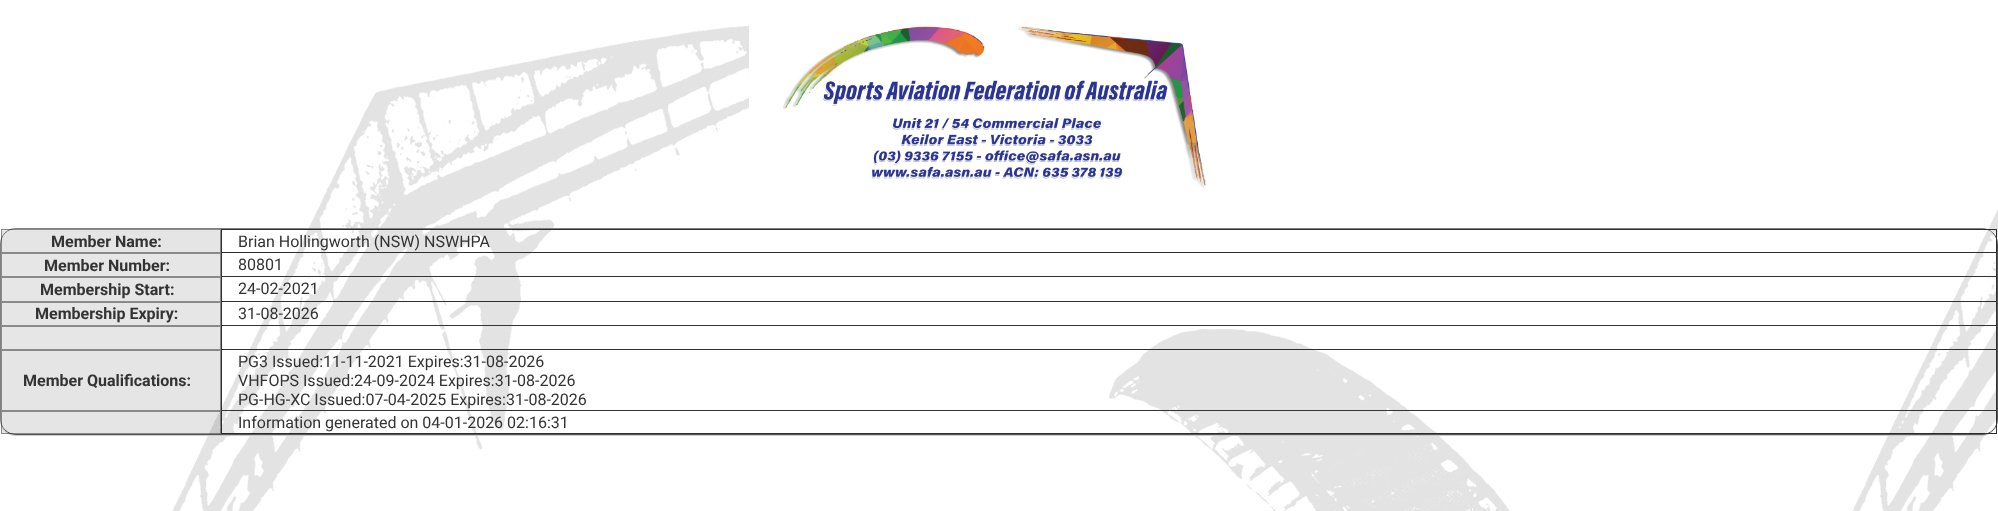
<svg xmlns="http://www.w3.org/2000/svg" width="1998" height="511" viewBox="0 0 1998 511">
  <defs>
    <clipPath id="clip1"><path d="M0 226H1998V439H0ZM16 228H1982C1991 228 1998 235 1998 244V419C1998 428 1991 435 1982 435H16C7 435 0 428 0 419V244C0 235 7 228 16 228Z" clip-rule="evenodd"/></clipPath>
    <filter id="blur1" x="-50%" y="-200%" width="200%" height="500%"><feGaussianBlur stdDeviation="0.5"/></filter>
  </defs>
  <rect width="100%" height="100%" fill="#ffffff"/>
  <image x="172" y="20" width="1826" height="491" href="img1.png"/>
  <image x="749" y="20" width="457" height="168" href="img2.png"/>
  <g clip-path="url(#clip1)">
    <rect x="0" y="229" width="1998" height="207" rx="16" fill="#cccccc" filter="url(#blur1)"/>
  </g>
  <path d="M1993 233C1996 236 1997.5 240 1997.5 244V419C1997.5 423 1996 427 1993 430C1990 433 1986 434.5 1982 434.5H16C12 434.5 8 433 5 430" fill="none" stroke="#555555"/>
  <path d="M5 430C2 427 .5 423 .5 419V244C.5 240 2 236 5 233C8 230 12 228.5 16 228.5H1982C1986 228.5 1990 230 1993 233" fill="none" stroke="#808080"/>
  <rect x="1" y="229" width="220" height="24" fill="#000000" fill-opacity="0.1"/>
  <rect x="1.5" y="229.5" width="219" height="23" fill="none" stroke="#000000" stroke-opacity="0.4"/>
  <text x="51" y="247" font-family="Roboto" font-size="16" font-weight="bold" fill="#333333">Member Name:</text>
  <rect x="221.5" y="229.5" width="1775" height="23" fill="none" stroke="#2e2e2e"/>
  <text x="238" y="247" font-family="Roboto" font-size="16" fill="#333333">Brian Hollingworth (NSW) NSWHPA</text>
  <rect x="1.5" y="253.5" width="219" height="23" fill="#e6e6e6" stroke="#8a8a8a"/>
  <text x="44" y="271" font-family="Roboto" font-size="16" font-weight="bold" fill="#333333">Member Number:</text>
  <rect x="1996" y="253" width="1" height="24" fill="#333333"/>
  <rect x="221" y="276" width="1776" height="1" fill="#333333"/>
  <rect x="221" y="253" width="1" height="24" fill="#333333"/>
  <text x="238" y="270" font-family="Roboto" font-size="16" fill="#333333">80801</text>
  <rect x="1.5" y="277.5" width="219" height="24" fill="#e6e6e6" stroke="#8a8a8a"/>
  <text x="40" y="295" font-family="Roboto" font-size="16" font-weight="bold" fill="#333333">Membership Start:</text>
  <rect x="1996" y="277" width="1" height="25" fill="#2e2e2e"/>
  <rect x="221" y="301" width="1776" height="1" fill="#2e2e2e"/>
  <rect x="221" y="277" width="1" height="25" fill="#2e2e2e"/>
  <text x="238" y="294" font-family="Roboto" font-size="16" fill="#333333">24-02-2021</text>
  <rect x="1.5" y="302.5" width="219" height="23" fill="#e6e6e6" stroke="#8a8a8a"/>
  <text x="35" y="319" font-family="Roboto" font-size="16" font-weight="bold" fill="#333333">Membership Expiry:</text>
  <rect x="1996" y="302" width="1" height="24" fill="#333333"/>
  <rect x="221" y="325" width="1776" height="1" fill="#333333"/>
  <rect x="221" y="302" width="1" height="24" fill="#333333"/>
  <text x="238" y="319" font-family="Roboto" font-size="16" fill="#333333">31-08-2026</text>
  <rect x="1.5" y="326.5" width="219" height="23" fill="#e6e6e6" stroke="#8a8a8a"/>
  <rect x="1996" y="326" width="1" height="24" fill="#2e2e2e"/>
  <rect x="221" y="349" width="1776" height="1" fill="#2e2e2e"/>
  <rect x="221" y="326" width="1" height="24" fill="#2e2e2e"/>
  <rect x="1" y="350" width="220" height="61" fill="#000000" fill-opacity="0.1"/>
  <rect x="1.5" y="350.5" width="219" height="60" fill="none" stroke="#000000" stroke-opacity="0.4"/>
  <text x="23" y="386" font-family="Roboto" font-size="16" font-weight="bold" fill="#333333">Member Qualifications:</text>
  <rect x="1996" y="350" width="1" height="61" fill="#333333"/>
  <rect x="221" y="410" width="1776" height="1" fill="#333333"/>
  <rect x="221" y="350" width="1" height="61" fill="#333333"/>
  <text x="238" y="367" font-family="Roboto" font-size="16" fill="#333333">PG3 Issued:11-11-2021 Expires:31-08-2026</text>
  <text x="238" y="386" font-family="Roboto" font-size="16" fill="#333333">VHFOPS Issued:24-09-2024 Expires:31-08-2026</text>
  <text x="238" y="405" font-family="Roboto" font-size="16" fill="#333333">PG-HG-XC Issued:07-04-2025 Expires:31-08-2026</text>
  <rect x="1" y="411" width="220" height="23" fill="#000000" fill-opacity="0.1"/>
  <rect x="1.5" y="411.5" width="219" height="22" fill="none" stroke="#000000" stroke-opacity="0.4"/>
  <rect x="1996" y="411" width="1" height="23" fill="#2e2e2e"/>
  <rect x="221" y="433" width="1776" height="1" fill="#2e2e2e"/>
  <rect x="221" y="411" width="1" height="23" fill="#2e2e2e"/>
  <text x="238" y="428" font-family="Roboto" font-size="16" fill="#333333">Information generated on 04-01-2026 02:16:31</text>
</svg>
